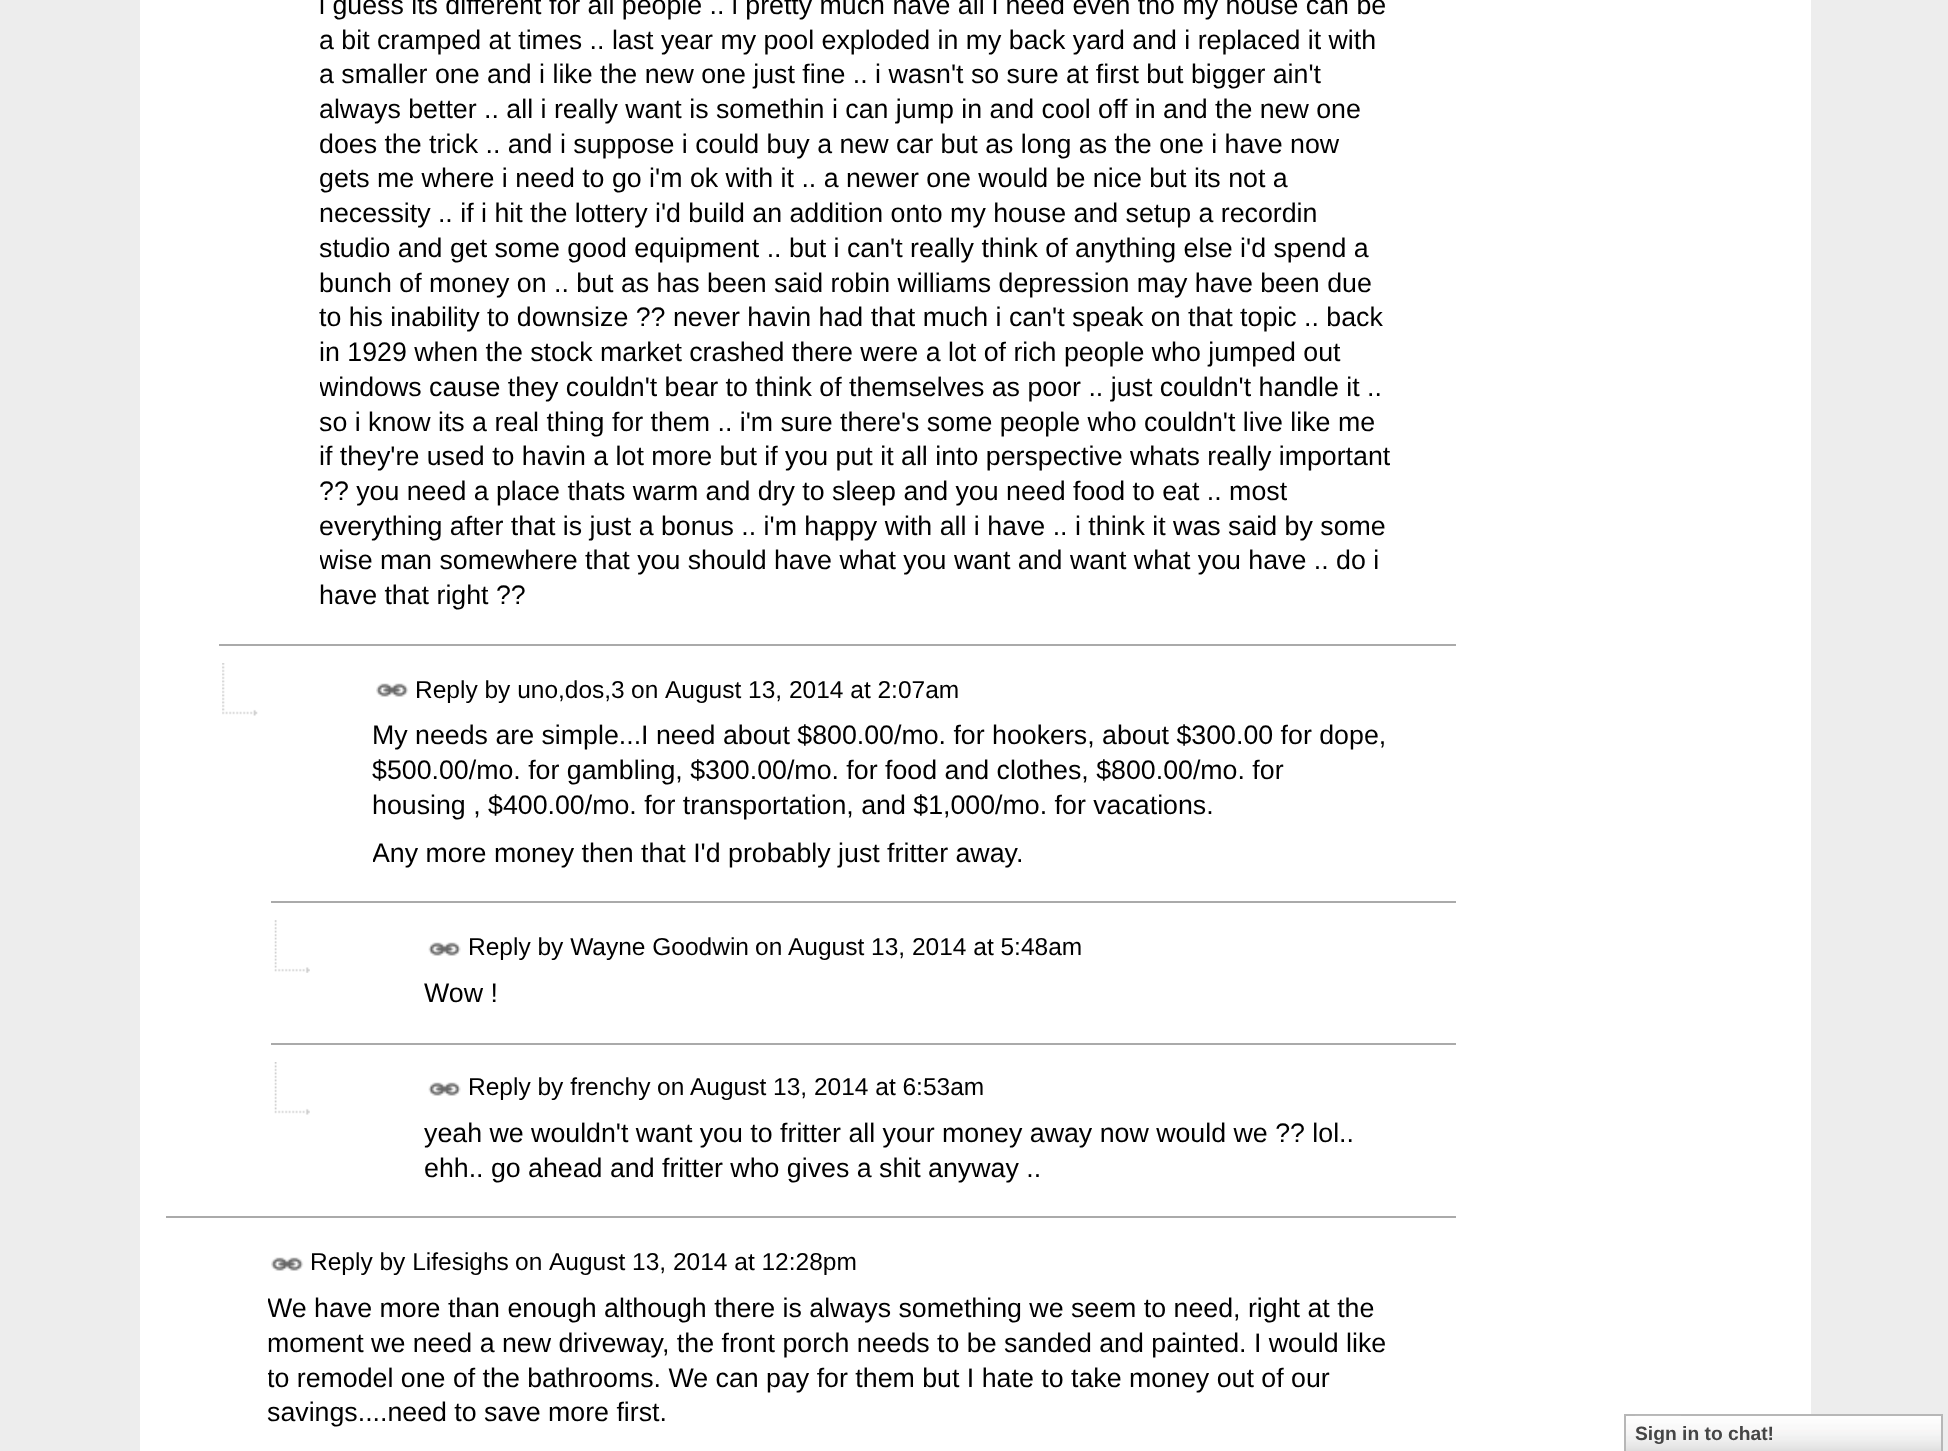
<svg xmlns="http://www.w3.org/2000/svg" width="1948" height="1451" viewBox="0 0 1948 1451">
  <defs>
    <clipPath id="clip1"><rect x="320" y="0" width="1075" height="613"/></clipPath>
    <clipPath id="clip2"><rect x="373" y="718" width="1022" height="152"/></clipPath>
    <clipPath id="clip3"><rect x="268" y="1292" width="1127" height="138"/></clipPath>
  </defs>
  <rect width="100%" height="100%" fill="#ededed"/>
  <rect x="140" y="0" width="1671" height="1451" fill="#ffffff"/>
  <text x="319" y="14" font-family="Liberation Sans" font-size="26.75" fill="#000000">i guess its different for all people .. i pretty much have all i need even tho my house can be</text>
  <text x="319" y="49" font-family="Liberation Sans" font-size="26.75" fill="#000000">a bit cramped at times .. last year my pool exploded in my back yard and i replaced it with</text>
  <text x="319" y="83" font-family="Liberation Sans" font-size="26.75" fill="#000000">a smaller one and i like the new one just fine .. i wasn't so sure at first but bigger ain't</text>
  <text x="319" y="118" font-family="Liberation Sans" font-size="26.75" fill="#000000">always better .. all i really want is somethin i can jump in and cool off in and the new one</text>
  <text x="319" y="153" font-family="Liberation Sans" font-size="26.75" fill="#000000">does the trick .. and i suppose i could buy a new car but as long as the one i have now</text>
  <text x="319" y="187" font-family="Liberation Sans" font-size="26.75" fill="#000000">gets me where i need to go i'm ok with it .. a newer one would be nice but its not a</text>
  <text x="319" y="222" font-family="Liberation Sans" font-size="26.75" fill="#000000">necessity .. if i hit the lottery i'd build an addition onto my house and setup a recordin</text>
  <text x="319" y="257" font-family="Liberation Sans" font-size="26.75" fill="#000000">studio and get some good equipment .. but i can't really think of anything else i'd spend a</text>
  <text x="319" y="292" font-family="Liberation Sans" font-size="26.75" fill="#000000">bunch of money on .. but as has been said robin williams depression may have been due</text>
  <text x="319" y="326" font-family="Liberation Sans" font-size="26.75" fill="#000000">to his inability to downsize ?? never havin had that much i can't speak on that topic .. back</text>
  <text x="319" y="361" font-family="Liberation Sans" font-size="26.75" fill="#000000">in 1929 when the stock market crashed there were a lot of rich people who jumped out</text>
  <g clip-path="url(#clip1)">
    <text x="319" y="396" font-family="Liberation Sans" font-size="26.75" fill="#000000">windows cause they couldn't bear to think of themselves as poor .. just couldn't handle it ..</text>
  </g>
  <text x="319" y="431" font-family="Liberation Sans" font-size="26.75" fill="#000000">so i know its a real thing for them .. i'm sure there's some people who couldn't live like me</text>
  <text x="319" y="465" font-family="Liberation Sans" font-size="26.75" fill="#000000">if they're used to havin a lot more but if you put it all into perspective whats really important</text>
  <text x="319" y="500" font-family="Liberation Sans" font-size="26.75" fill="#000000">?? you need a place thats warm and dry to sleep and you need food to eat .. most</text>
  <text x="319" y="535" font-family="Liberation Sans" font-size="26.75" fill="#000000">everything after that is just a bonus .. i'm happy with all i have .. i think it was said by some</text>
  <g clip-path="url(#clip1)">
    <text x="319" y="569" font-family="Liberation Sans" font-size="26.75" fill="#000000">wise man somewhere that you should have what you want and want what you have .. do i</text>
  </g>
  <text x="319" y="604" font-family="Liberation Sans" font-size="26.75" fill="#000000">have that right ??</text>
  <image x="222" y="663" width="36" height="53" href="img1.png"/>
  <rect x="219" y="644" width="1237" height="2" fill="#aaaaaa"/>
  <image x="376" y="683" width="33" height="14" href="img2.png"/>
  <text x="415" y="698" font-family="Liberation Sans" font-size="24.5" fill="#000000">Reply by uno,dos,3</text>
  <text x="631" y="698" font-family="Liberation Sans" font-size="24.5" fill="#000000">on</text>
  <text x="665" y="698" font-family="Liberation Sans" font-size="24.5" fill="#000000">August 13, 2014 at 2:07am</text>
  <text x="372" y="744" font-family="Liberation Sans" font-size="26.75" fill="#000000">My needs are simple...I need about $800.00/mo. for hookers, about $300.00 for dope,</text>
  <text x="372" y="779" font-family="Liberation Sans" font-size="26.75" fill="#000000">$500.00/mo. for gambling, $300.00/mo. for food and clothes, $800.00/mo. for</text>
  <text x="372" y="814" font-family="Liberation Sans" font-size="26.75" fill="#000000">housing , $400.00/mo. for transportation, and $1,000/mo. for vacations.</text>
  <g clip-path="url(#clip2)">
    <text x="372" y="862" font-family="Liberation Sans" font-size="26.75" fill="#000000">Any more money then that I'd probably just fritter away.</text>
  </g>
  <image x="274" y="920" width="36" height="53" href="img3.png"/>
  <rect x="271" y="901" width="1185" height="2" fill="#aaaaaa"/>
  <image x="428" y="942" width="33" height="14" href="img4.png"/>
  <text x="468" y="955" font-family="Liberation Sans" font-size="24.5" fill="#000000">Reply by Wayne Goodwin</text>
  <text x="755" y="955" font-family="Liberation Sans" font-size="24.5" fill="#000000">on</text>
  <text x="788" y="955" font-family="Liberation Sans" font-size="24.5" fill="#000000">August 13, 2014 at 5:48am</text>
  <text x="424" y="1002" font-family="Liberation Sans" font-size="26.75" fill="#000000">Wow !</text>
  <image x="274" y="1062" width="36" height="53" href="img5.png"/>
  <rect x="271" y="1043" width="1185" height="2" fill="#aaaaaa"/>
  <image x="428" y="1082" width="33" height="14" href="img4.png"/>
  <text x="468" y="1095" font-family="Liberation Sans" font-size="24.5" fill="#000000">Reply by frenchy</text>
  <text x="657" y="1095" font-family="Liberation Sans" font-size="24.5" fill="#000000">on</text>
  <text x="690" y="1095" font-family="Liberation Sans" font-size="24.5" fill="#000000">August 13, 2014 at 6:53am</text>
  <text x="424" y="1142" font-family="Liberation Sans" font-size="26.75" fill="#000000">yeah we wouldn't want you to fritter all your money away now would we ?? lol..</text>
  <text x="424" y="1177" font-family="Liberation Sans" font-size="26.75" fill="#000000">ehh.. go ahead and fritter who gives a shit anyway ..</text>
  <rect x="166" y="1216" width="1290" height="2" fill="#aaaaaa"/>
  <image x="271" y="1257" width="33" height="14" href="img2.png"/>
  <text x="310" y="1270" font-family="Liberation Sans" font-size="24.5" fill="#000000">Reply by Lifesighs</text>
  <text x="515" y="1270" font-family="Liberation Sans" font-size="24.5" fill="#000000">on</text>
  <text x="549" y="1270" font-family="Liberation Sans" font-size="24.5" fill="#000000">August 13, 2014 at 12:28pm</text>
  <g clip-path="url(#clip3)">
    <text x="267" y="1317" font-family="Liberation Sans" font-size="26.75" fill="#000000">We have more than enough although there is always something we seem to need, right at the</text>
  </g>
  <text x="267" y="1352" font-family="Liberation Sans" font-size="26.75" fill="#000000">moment we need a new driveway, the front porch needs to be sanded and painted. I would like</text>
  <g clip-path="url(#clip3)">
    <text x="267" y="1387" font-family="Liberation Sans" font-size="26.75" fill="#000000">to remodel one of the bathrooms. We can pay for them but I hate to take money out of our</text>
  </g>
  <text x="267" y="1421" font-family="Liberation Sans" font-size="26.75" fill="#000000">savings....need to save more first.</text>
  <image x="1626" y="1416" width="315" height="35" href="img6.png"/>
  <rect x="1625" y="1415" width="317" height="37" fill="none" stroke="#b7b7b7" stroke-width="2"/>
  <rect x="1635" y="1415" width="46" height="1" fill="#bbbbbb"/>
  <text x="1635" y="1440" font-family="Liberation Sans" font-size="19.25" font-weight="bold" fill="#454545">Sign in to chat!</text>
</svg>
